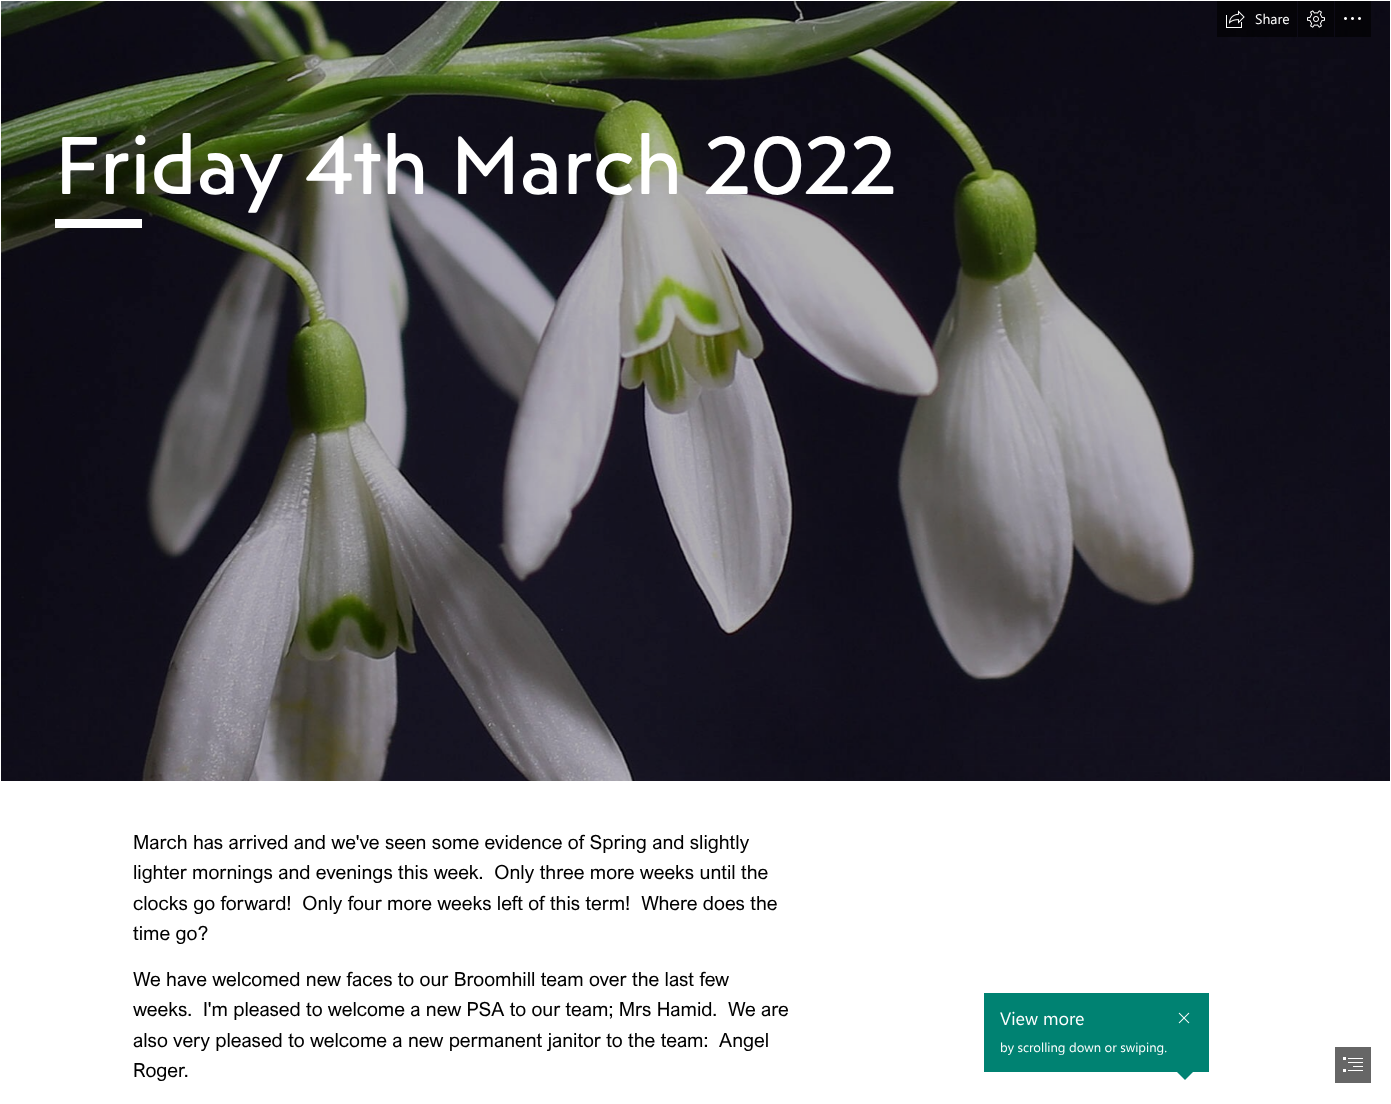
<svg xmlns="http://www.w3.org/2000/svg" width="1391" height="1104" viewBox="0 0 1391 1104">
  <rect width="100%" height="100%" fill="#ffffff"/>
  <image x="1" y="1" width="1389" height="780" href="img4.png"/>
  <rect x="1217" y="1" width="80" height="36" fill="#000000" fill-opacity="0.6"/>
  <image x="1226" y="10" width="19" height="18" href="img1.png"/>
  <text x="1255" y="24" font-family="Segoe UI" font-size="14" fill="#ffffff">Share</text>
  <rect x="1298" y="1" width="36" height="36" fill="#000000" fill-opacity="0.6"/>
  <image x="1307" y="10" width="18" height="18" href="img2.png"/>
  <rect x="1335" y="1" width="36" height="36" fill="#000000" fill-opacity="0.6"/>
  <image x="1344" y="17" width="17" height="3" href="img3.png"/>
  <text x="55" y="194" font-family="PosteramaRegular" font-size="81.5" letter-spacing="-0.4" fill="#ffffff">Friday 4th March 2022</text>
  <rect x="55" y="219" width="87" height="9" fill="#ffffff"/>
  <text x="133" y="849" font-family="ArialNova" font-size="19.55" fill="#000000">March has arrived and we've seen some evidence of Spring and slightly</text>
  <text x="133" y="879" font-family="ArialNova" font-size="19.55" fill="#000000" xml:space="preserve">lighter mornings and evenings this week.  Only three more weeks until the</text>
  <text x="133" y="910" font-family="ArialNova" font-size="19.55" fill="#000000" xml:space="preserve">clocks go forward!  Only four more weeks left of this term!  Where does the</text>
  <text x="133" y="940" font-family="ArialNova" font-size="19.55" fill="#000000">time go?</text>
  <text x="133" y="986" font-family="ArialNova" font-size="19.55" fill="#000000">We have welcomed new faces to our Broomhill team over the last few</text>
  <text x="133" y="1016" font-family="ArialNova" font-size="19.55" fill="#000000" xml:space="preserve">weeks.  I'm pleased to welcome a new PSA to our team; Mrs Hamid.  We are</text>
  <text x="133" y="1047" font-family="ArialNova" font-size="19.55" fill="#000000" xml:space="preserve">also very pleased to welcome a new permanent janitor to the team:  Angel</text>
  <text x="133" y="1077" font-family="ArialNova" font-size="19.55" fill="#000000">Roger.</text>
  <rect x="984" y="993" width="225" height="79" fill="#008272"/>
  <text x="1000" y="1025" font-family="Segoe UI" font-size="18" fill="#ffffff">View more</text>
  <text x="1000" y="1052" font-family="Segoe UI" font-size="13" fill="#ffffff">by scrolling down or swiping.</text>
  <image x="1178" y="1012" width="12" height="12" href="img5.png"/>
  <path d="M1177 1072H1193L1185 1080Z" fill="#008272"/>
  <rect x="1335" y="1047" width="36" height="36" fill="#666666"/>
  <image x="1343" y="1057" width="20" height="15" href="img6.png"/>
</svg>
